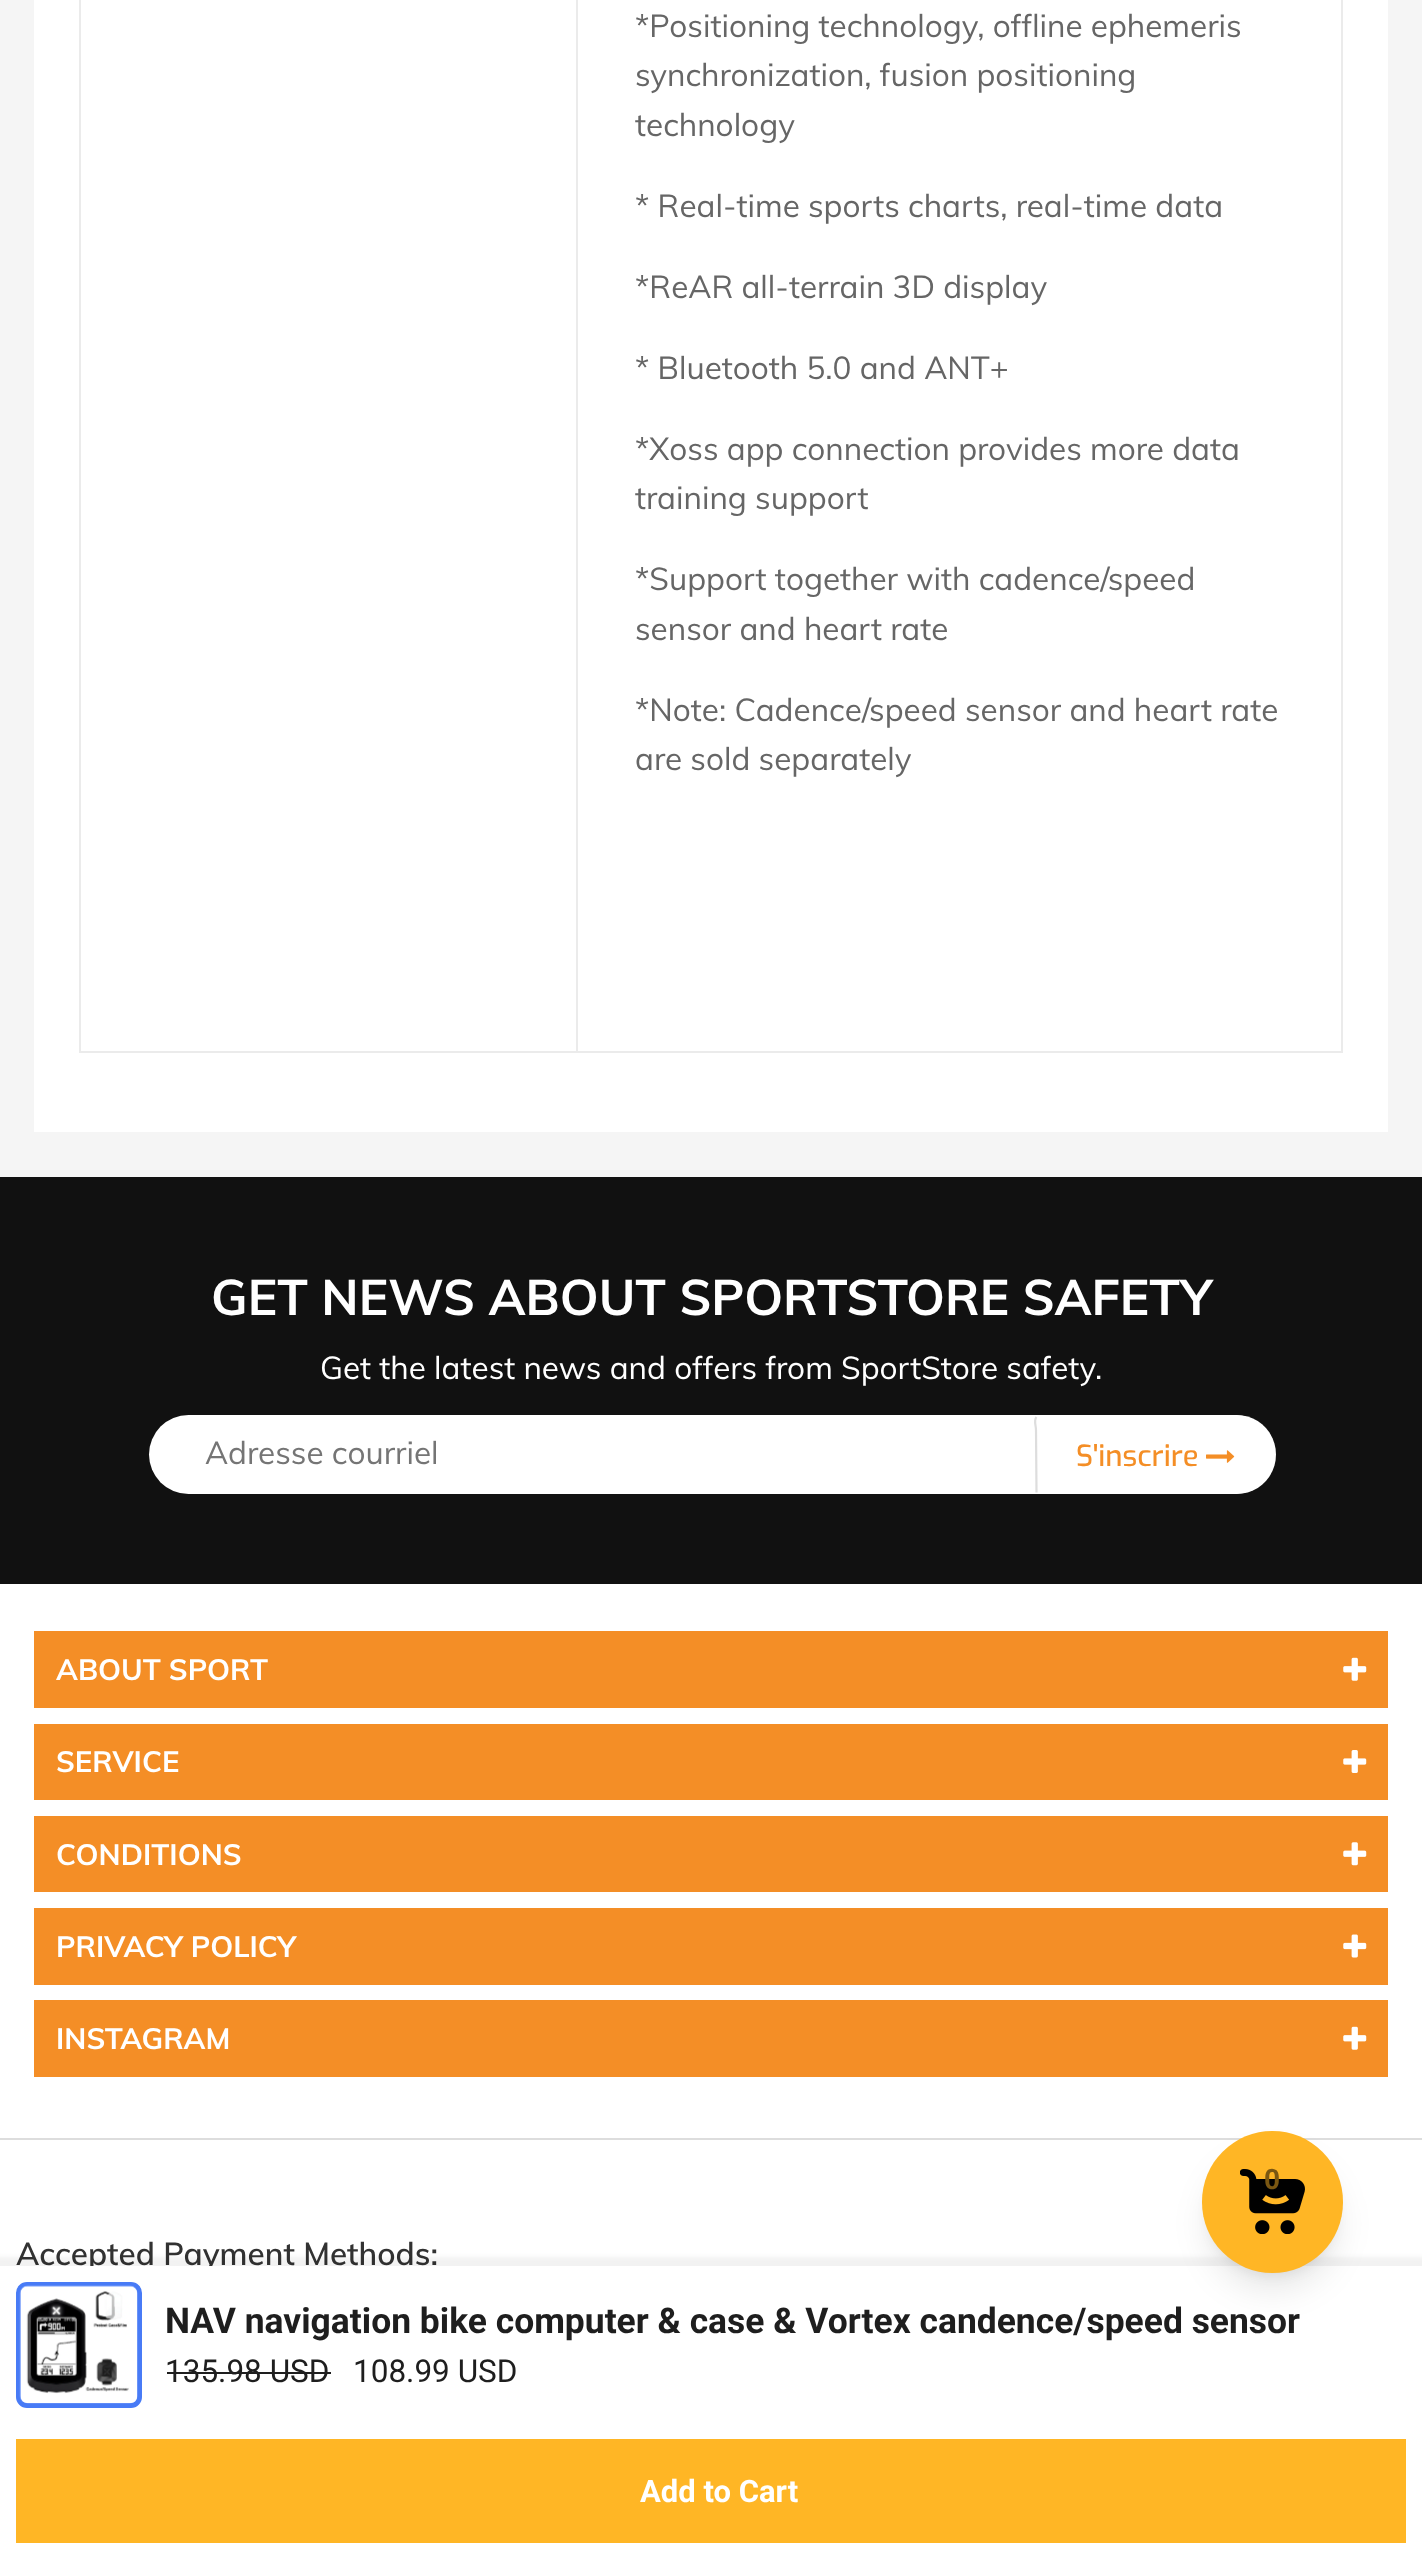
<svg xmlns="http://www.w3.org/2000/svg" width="1422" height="2558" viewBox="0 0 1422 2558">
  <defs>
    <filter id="blur1" x="-50%" y="-200%" width="200%" height="500%"><feGaussianBlur stdDeviation="2"/></filter>
    <filter id="blur2" x="-50%" y="-200%" width="200%" height="500%"><feGaussianBlur stdDeviation="7"/></filter>
    <filter id="blur3" x="-50%" y="-200%" width="200%" height="500%"><feGaussianBlur stdDeviation="17"/></filter>
  </defs>
  <rect width="100%" height="100%" fill="#ffffff"/>
  <rect x="0" y="0" width="1422" height="1177" fill="#f5f5f5"/>
  <rect x="34" y="0" width="1354" height="1132" fill="#ffffff"/>
  <rect x="80" y="-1" width="1262" height="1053" fill="none" stroke="#ebebeb" stroke-width="2"/>
  <rect x="576" y="0" width="2" height="1051" fill="#ebebeb"/>
  <text x="635" y="37" font-family="Muli" font-size="31.5" fill="#666666">*Positioning technology, offline ephemeris</text>
  <text x="635" y="86" font-family="Muli" font-size="31.5" fill="#666666">synchronization, fusion positioning</text>
  <text x="635" y="136" font-family="Muli" font-size="31.5" fill="#666666">technology</text>
  <text x="635" y="217" font-family="Muli" font-size="31.5" fill="#666666">* Real-time sports charts, real-time data</text>
  <text x="635" y="298" font-family="Muli" font-size="31.5" fill="#666666">*ReAR all-terrain 3D display</text>
  <text x="635" y="379" font-family="Muli" font-size="31.5" fill="#666666">* Bluetooth 5.0 and ANT+</text>
  <text x="635" y="460" font-family="Muli" font-size="31.5" fill="#666666">*Xoss app connection provides more data</text>
  <text x="635" y="509" font-family="Muli" font-size="31.5" fill="#666666">training support</text>
  <text x="635" y="590" font-family="Muli" font-size="31.5" fill="#666666">*Support together with cadence/speed</text>
  <text x="635" y="640" font-family="Muli" font-size="31.5" fill="#666666">sensor and heart rate</text>
  <text x="635" y="721" font-family="Muli" font-size="31.5" fill="#666666">*Note: Cadence/speed sensor and heart rate</text>
  <text x="635" y="770" font-family="Muli" font-size="31.5" fill="#666666">are sold separately</text>
  <rect x="0" y="1177" width="1422" height="407" fill="#111111"/>
  <text x="211" y="1315" font-family="Muli" font-size="49.5" font-weight="bold" fill="#ffffff">GET NEWS ABOUT SPORTSTORE SAFETY</text>
  <text x="320" y="1379" font-family="Muli" font-size="31.5" fill="#ffffff">Get the latest news and offers from SportStore safety.</text>
  <rect x="149" y="1415" width="1125" height="79" rx="39.5" fill="#ffffff"/>
  <text x="205" y="1464" font-family="Muli" font-size="31.5" fill="#757575">Adresse courriel</text>
  <path d="M1037 1415H1236.5C1258.5 1415 1276 1432.5 1276 1454.5C1276 1476.5 1258.5 1494 1236.5 1494H1037C1036 1494 1035 1493 1035 1492V1417C1035 1416 1036 1415 1037 1415Z" fill="#ffffff"/>
  <path d="M1036.5 1492.5L1036 1430C1036 1425.5 1033.5 1420 1036.5 1417" fill="none" stroke="#dddddd" stroke-width="2.2"/>
  <text x="1076" y="1466" font-family="Exo" font-size="29.25" font-weight="500" fill="#f48e26">S'inscrire</text>
  <image x="1206" y="1450" width="29" height="13" href="img1.png"/>
  <rect x="34" y="1631" width="1354" height="77" fill="#f48e26"/>
  <text x="56" y="1680" font-family="Muli" font-size="29.25" font-weight="bold" fill="#ffffff">ABOUT SPORT</text>
  <image x="1343" y="1657" width="24" height="24" href="img2.png"/>
  <rect x="34" y="1724" width="1354" height="76" fill="#f48e26"/>
  <text x="56" y="1772" font-family="Muli" font-size="29.25" font-weight="bold" fill="#ffffff">SERVICE</text>
  <image x="1343" y="1750" width="24" height="23" href="img3.png"/>
  <rect x="34" y="1816" width="1354" height="76" fill="#f48e26"/>
  <text x="56" y="1865" font-family="Muli" font-size="29.25" font-weight="bold" fill="#ffffff">CONDITIONS</text>
  <image x="1343" y="1842" width="24" height="24" href="img4.png"/>
  <rect x="34" y="1908" width="1354" height="77" fill="#f48e26"/>
  <text x="56" y="1957" font-family="Muli" font-size="29.25" font-weight="bold" fill="#ffffff">PRIVACY POLICY</text>
  <image x="1343" y="1934" width="24" height="24" href="img5.png"/>
  <rect x="34" y="2000" width="1354" height="77" fill="#f48e26"/>
  <text x="56" y="2049" font-family="Muli" font-size="29.25" font-weight="bold" fill="#ffffff">INSTAGRAM</text>
  <image x="1343" y="2026" width="24" height="24" href="img2.png"/>
  <rect x="0" y="2138" width="1422" height="2" fill="#dddddd"/>
  <text x="16" y="2265" font-family="Muli" font-size="31.5" font-weight="600" fill="#323232">Accepted Payment Methods:</text>
  <rect x="-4" y="2257" width="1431" height="301" fill="#000000" fill-opacity="0.05" filter="url(#blur1)"/>
  <rect x="0" y="2266" width="1422" height="292" fill="#ffffff"/>
  <rect x="1211" y="2149" width="123" height="124" rx="61.5" fill="#000000" fill-opacity="0.1" filter="url(#blur2)"/>
  <rect x="1208" y="2160" width="129" height="128" rx="64" fill="#000000" fill-opacity="0.1" filter="url(#blur3)"/>
  <rect x="1202" y="2131" width="141" height="142" rx="70.5" fill="#ffb625"/>
  <image x="1240" y="2169" width="65" height="65" href="img6.png"/>
  <text x="1264" y="2189" font-family="Roboto" font-size="28" font-weight="bold" fill="#7a5712">0</text>
  <rect x="18.5" y="2284.5" width="121" height="121" rx="8.5" fill="none" stroke="#487bf6" stroke-width="5"/>
  <image x="19" y="2285" width="119" height="119" href="img7.png"/>
  <text x="165" y="2333" font-family="Roboto" font-size="35.45" font-weight="bold" fill="#1e1e1e">NAV navigation bike computer &amp; case &amp; Vortex candence/speed sensor</text>
  <text x="165" y="2382" font-family="Roboto" font-size="31.5" fill="#1e1e1e">135.98 USD</text>
  <rect x="167" y="2372" width="164" height="2" fill="#1e1e1e"/>
  <text x="353" y="2382" font-family="Roboto" font-size="31.5" fill="#1e1e1e">108.99 USD</text>
  <rect x="16" y="2439" width="1390" height="104" fill="#ffb625"/>
  <text x="640" y="2502" font-family="Roboto" font-size="31" font-weight="bold" fill="#ffffff">Add to Cart</text>
</svg>
